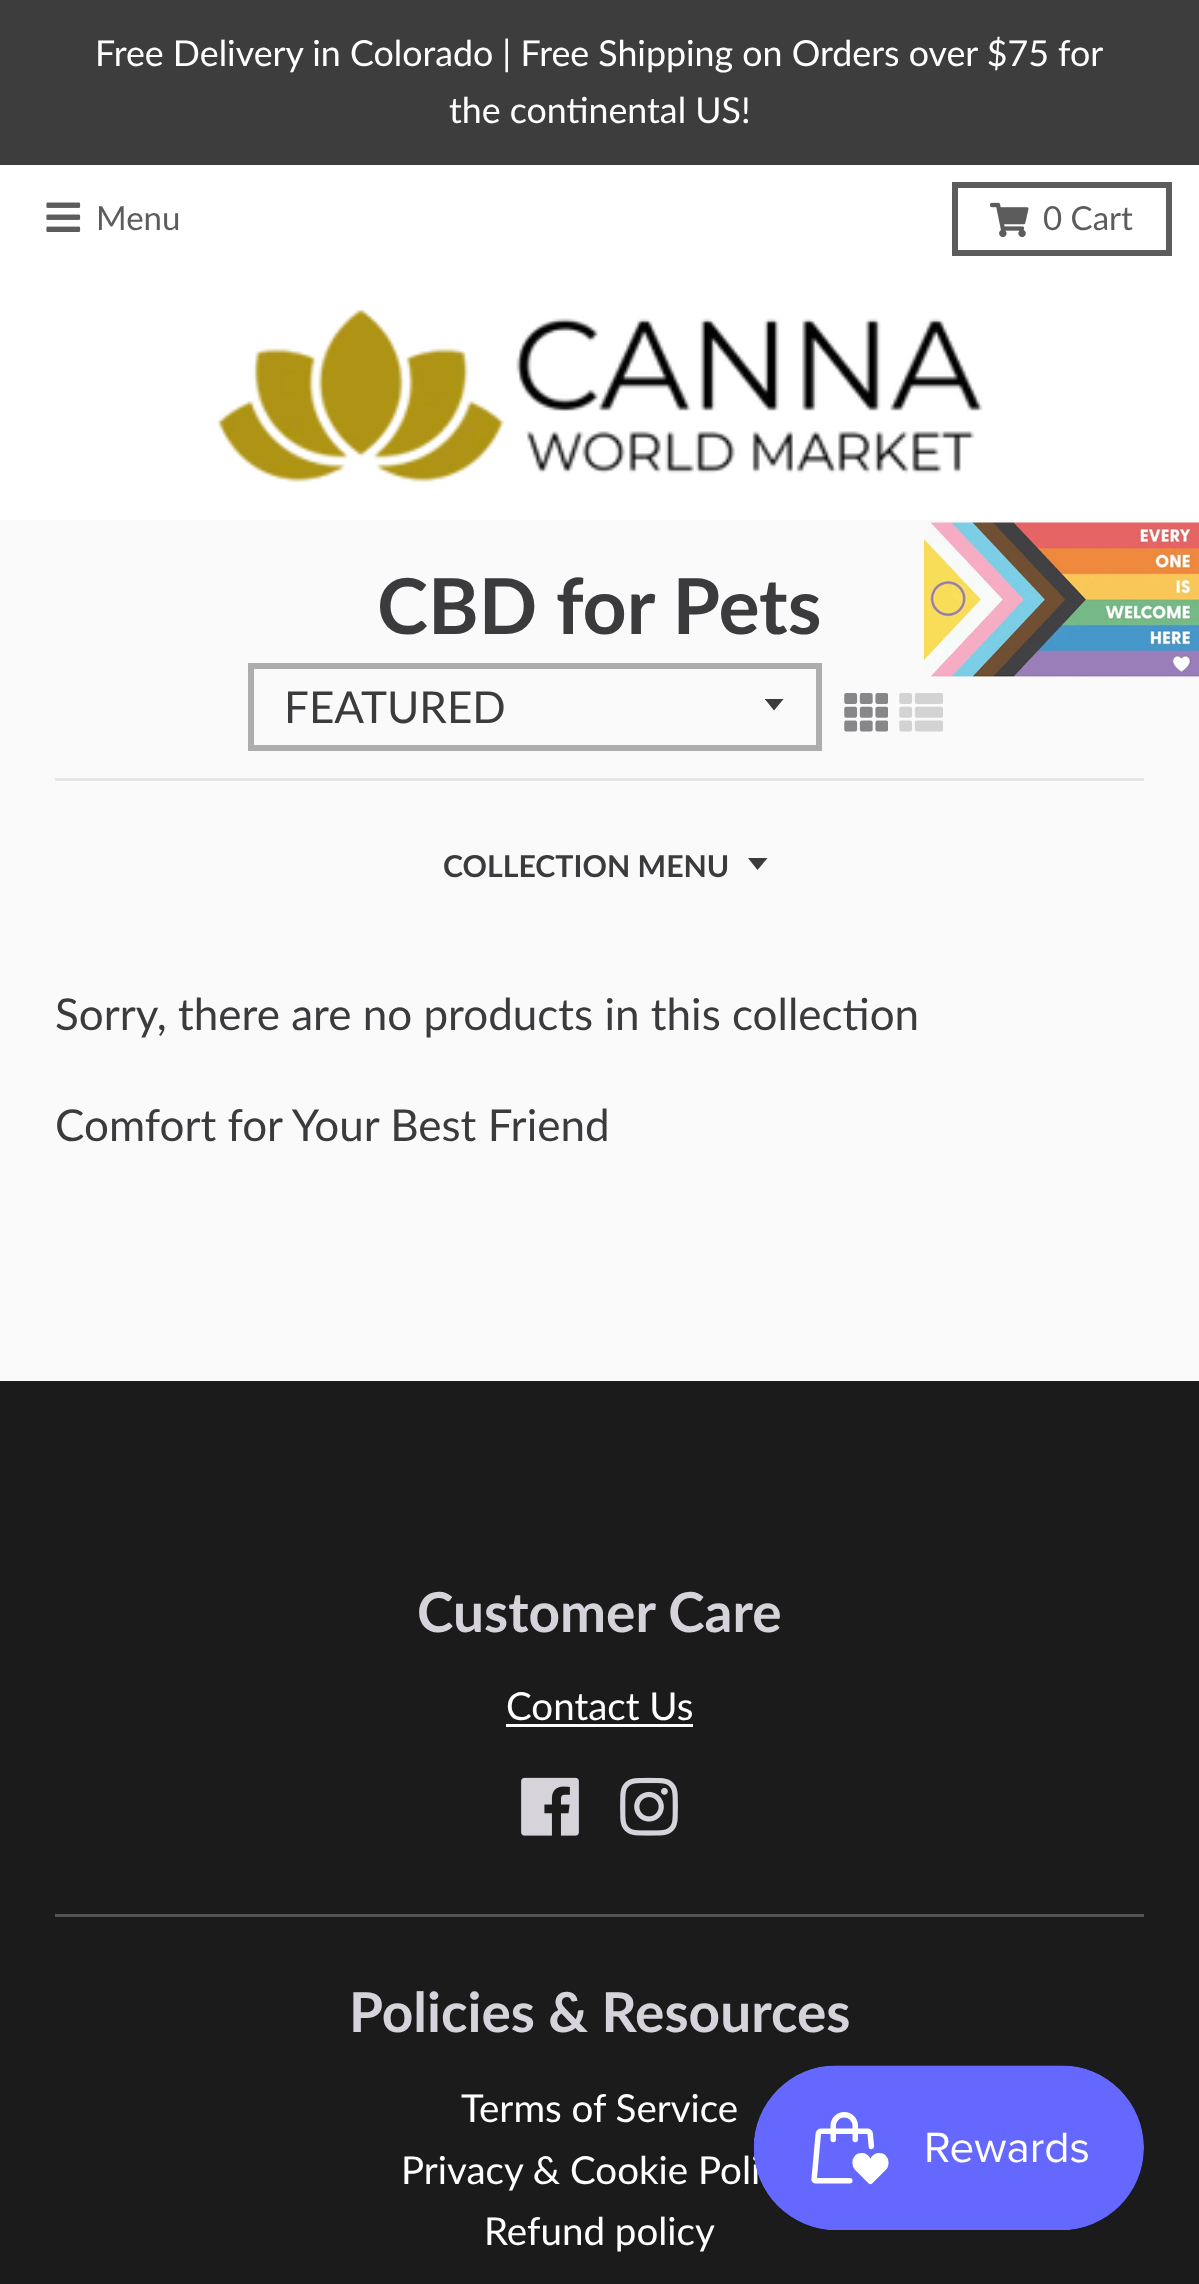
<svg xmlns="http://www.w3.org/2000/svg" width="1199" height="2284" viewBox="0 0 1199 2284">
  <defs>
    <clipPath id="clip1"><rect x="765" y="699" width="22" height="13"/></clipPath>
  </defs>
  <rect width="100%" height="100%" fill="#fafafa"/>
  <rect x="0" y="0" width="1199" height="165" fill="#3d3d3d"/>
  <text x="95" y="66" font-family="Lato" font-size="35.75" fill="#ffffff">Free Delivery in Colorado | Free Shipping on Orders over $75 for</text>
  <text x="449" y="123" font-family="Lato" font-size="35.75" fill="#ffffff">the continental US!</text>
  <rect x="0" y="165" width="1199" height="355" fill="#ffffff"/>
  <image x="46" y="202" width="35" height="30" href="img1.png"/>
  <text x="96" y="230" font-family="Lato" font-size="33" fill="#5c5c5c">Menu</text>
  <rect x="955" y="185" width="214" height="68" fill="none" stroke="#5c5c5c" stroke-width="6"/>
  <image x="990" y="202" width="39" height="36" href="img2.png"/>
  <text x="1043" y="230" font-family="Lato" font-size="33" fill="#5c5c5c">0 Cart</text>
  <image x="216" y="308" width="767" height="175" href="img3.png"/>
  <rect x="55" y="778" width="1089" height="3" fill="#e6e6e7"/>
  <text x="377" y="634" font-family="Lato" font-size="77" font-weight="bold" fill="#3b3a3d">CBD for Pets</text>
  <g clip-path="url(#clip1)">
    <path d="M764.5 698.5L774 710.5L784 698.5Z" fill="#3b3a3d"/>
  </g>
  <rect x="251" y="666" width="568" height="82" fill="none" stroke="#adadae" stroke-width="6"/>
  <text x="284" y="723" font-family="Lato" font-size="44" fill="#3b3a3d">FEATURED</text>
  <image x="844" y="693" width="44" height="39" href="img4.png"/>
  <image x="899" y="693" width="44" height="39" href="img5.png"/>
  <text x="443" y="877" font-family="Lato" font-size="30.25" font-weight="bold" fill="#3b3a3d">COLLECTION MENU</text>
  <path d="M748 858L757.5 870L767.5 858Z" fill="#3b3a3d"/>
  <text x="55" y="1030" font-family="Lato" font-size="44" fill="#3b3a3d">Sorry, there are no products in this collection</text>
  <text x="55" y="1141" font-family="Lato" font-size="44" fill="#3b3a3d">Comfort for Your Best Friend</text>
  <rect x="0" y="1381" width="1199" height="903" fill="#1b1b1b"/>
  <text x="417" y="1632" font-family="Lato" font-size="55" font-weight="bold" fill="#d6d4da">Customer Care</text>
  <text x="506" y="1720" font-family="Lato" font-size="38.5" fill="#ffffff">Contact Us</text>
  <rect x="506" y="1724" width="187" height="3" fill="#ffffff"/>
  <rect x="55" y="1914" width="1089" height="3" fill="#535254"/>
  <image x="521" y="1777" width="58" height="59" href="img6.png"/>
  <image x="620" y="1777" width="58" height="59" href="img7.png"/>
  <text x="349" y="2032" font-family="Lato" font-size="55" font-weight="bold" fill="#d6d4da">Policies &amp; Resources</text>
  <text x="461" y="2122" font-family="Lato" font-size="38.5" fill="#ffffff">Terms of Service</text>
  <text x="401" y="2184" font-family="Lato" font-size="38.5" fill="#ffffff">Privacy &amp; Cookie Poli</text>
  <text x="484" y="2245" font-family="Lato" font-size="38.5" fill="#ffffff">Refund policy</text>
  <image x="924" y="522" width="275" height="155" href="img8.png"/>
  <image x="753" y="2065" width="391" height="165" href="img9.png"/>
</svg>
